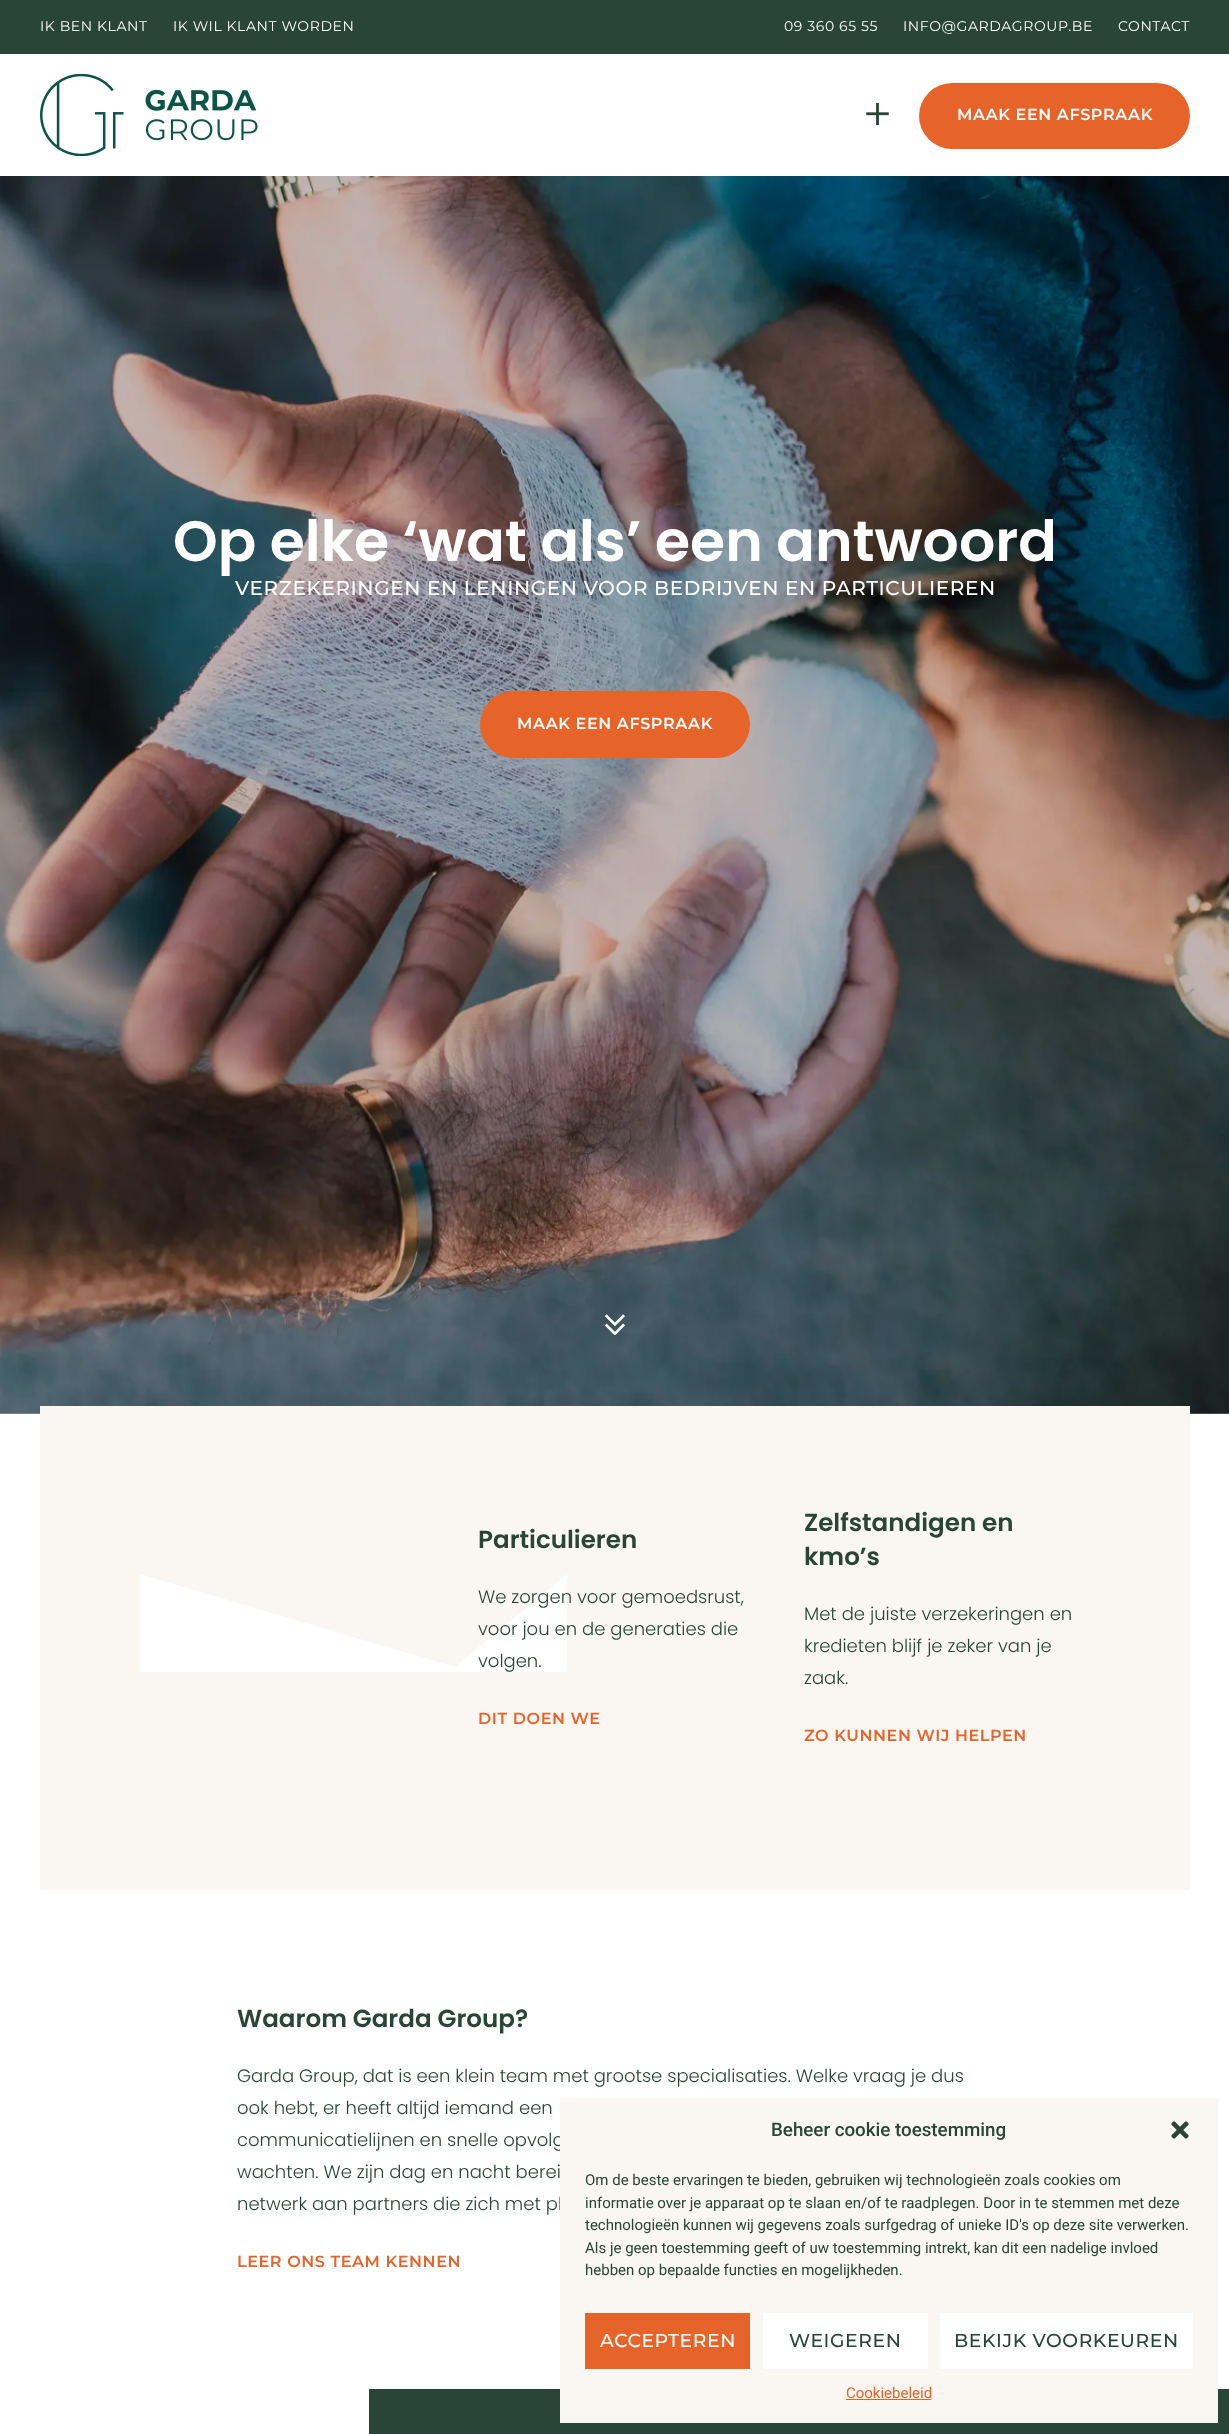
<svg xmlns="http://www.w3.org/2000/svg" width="1229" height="2434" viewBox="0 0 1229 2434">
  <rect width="100%" height="100%" fill="#ffffff"/>
  <rect x="0" y="0" width="1229" height="54" fill="#284537"/>
  <text x="40" y="31" font-family="Montserrat" font-size="14" letter-spacing="0.6" fill="#ffffff">IK BEN KLANT</text>
  <text x="173" y="31" font-family="Montserrat" font-size="14" letter-spacing="0.6" fill="#ffffff">IK WIL KLANT WORDEN</text>
  <text x="784" y="31" font-family="Montserrat" font-size="14" letter-spacing="0.6" fill="#ffffff">09 360 65 55</text>
  <text x="903" y="31" font-family="Montserrat" font-size="14" letter-spacing="0.6" fill="#ffffff">INFO@GARDAGROUP.BE</text>
  <text x="1118" y="31" font-family="Montserrat" font-size="14" letter-spacing="0.6" fill="#ffffff">CONTACT</text>
  <image x="40" y="74" width="218" height="82" href="img1.png"/>
  <image x="866" y="103" width="23" height="22" href="img2.png"/>
  <rect x="919" y="83" width="271" height="66" rx="33" fill="#e6642a"/>
  <text x="957" y="120" font-family="Montserrat" font-size="16" font-weight="600" letter-spacing="0.6" fill="#ffffff">MAAK EEN AFSPRAAK</text>
  <image x="0" y="176" width="1229" height="1238" href="img3.png"/>
  <text x="173" y="561" font-family="Poppins" font-size="56.9" font-weight="600" fill="#ffffff">Op elke ‘wat als’ een antwoord</text>
  <text x="235" y="595" font-family="Montserrat" font-size="20" font-weight="500" letter-spacing="0.6" fill="#ffffff">VERZEKERINGEN EN LENINGEN VOOR BEDRIJVEN EN PARTICULIEREN</text>
  <rect x="480" y="691" width="270" height="67" rx="33.5" fill="#e6642a"/>
  <text x="517" y="729" font-family="Montserrat" font-size="16" font-weight="600" letter-spacing="0.6" fill="#ffffff">MAAK EEN AFSPRAAK</text>
  <image x="604" y="1314" width="21" height="21" href="img4.png"/>
  <rect x="40" y="1406" width="1150" height="484" fill="#faf6f1"/>
  <path d="M455 1667L140 1574V1672H567V1574Z" fill="#ffffff"/>
  <text x="478" y="1548" font-family="Poppins" font-size="24.6" font-weight="600" fill="#284537">Particulieren</text>
  <text x="478" y="1603" font-family="Poppins" font-size="18" font-weight="300" fill="#284537">We zorgen voor gemoedsrust,</text>
  <text x="478" y="1635" font-family="Poppins" font-size="18" font-weight="300" fill="#284537">voor jou en de generaties die</text>
  <text x="478" y="1667" font-family="Poppins" font-size="18" font-weight="300" fill="#284537">volgen.</text>
  <text x="478" y="1724" font-family="Montserrat" font-size="16" font-weight="600" letter-spacing="0.6" fill="#e6642a">DIT DOEN WE</text>
  <text x="804" y="1531" font-family="Poppins" font-size="24.6" font-weight="600" fill="#284537">Zelfstandigen en</text>
  <text x="804" y="1565" font-family="Poppins" font-size="24.6" font-weight="600" fill="#284537">kmo’s</text>
  <text x="804" y="1620" font-family="Poppins" font-size="18" font-weight="300" fill="#284537">Met de juiste verzekeringen en</text>
  <text x="804" y="1652" font-family="Poppins" font-size="18" font-weight="300" fill="#284537">kredieten blijf je zeker van je</text>
  <text x="804" y="1684" font-family="Poppins" font-size="18" font-weight="300" fill="#284537">zaak.</text>
  <text x="804" y="1741" font-family="Montserrat" font-size="16" font-weight="600" letter-spacing="0.6" fill="#e6642a">ZO KUNNEN WIJ HELPEN</text>
  <text x="237" y="2027" font-family="Poppins" font-size="24.6" font-weight="600" fill="#284537">Waarom Garda Group?</text>
  <text x="237" y="2082" font-family="Poppins" font-size="18" font-weight="300" fill="#284537">Garda Group, dat is een klein team met grootse specialisaties. Welke vraag je dus</text>
  <text x="237" y="2114" font-family="Poppins" font-size="18" font-weight="300" fill="#284537">ook hebt, er heeft altijd iemand een</text>
  <text x="237" y="2146" font-family="Poppins" font-size="18" font-weight="300" fill="#284537">communicatielijnen en snelle opvolg</text>
  <text x="237" y="2178" font-family="Poppins" font-size="18" font-weight="300" fill="#284537">wachten. We zijn dag en nacht berei</text>
  <text x="237" y="2210" font-family="Poppins" font-size="18" font-weight="300" fill="#284537">netwerk aan partners die zich met pl</text>
  <text x="237" y="2267" font-family="Montserrat" font-size="16" font-weight="600" letter-spacing="0.6" fill="#e6642a">LEER ONS TEAM KENNEN</text>
  <rect x="369" y="2389" width="860" height="45" fill="#284537"/>
  <rect x="560" y="2098" width="658" height="325" fill="#faf6f1"/>
  <text x="771" y="2136" font-family="Roboto" font-size="18.75" font-weight="500" fill="#284537">Beheer cookie toestemming</text>
  <image x="1171" y="2121" width="18" height="18" href="img5.png"/>
  <text x="585" y="2185" font-family="Roboto" font-size="15" fill="#284537">Om de beste ervaringen te bieden, gebruiken wij technologieën zoals cookies om</text>
  <text x="585" y="2208" font-family="Roboto" font-size="15" fill="#284537">informatie over je apparaat op te slaan en/of te raadplegen. Door in te stemmen met deze</text>
  <text x="585" y="2230" font-family="Roboto" font-size="15" fill="#284537">technologieën kunnen wij gegevens zoals surfgedrag of unieke ID's op deze site verwerken.</text>
  <text x="585" y="2253" font-family="Roboto" font-size="15" fill="#284537">Als je geen toestemming geeft of uw toestemming intrekt, kan dit een nadelige invloed</text>
  <text x="585" y="2275" font-family="Roboto" font-size="15" fill="#284537">hebben op bepaalde functies en mogelijkheden.</text>
  <rect x="585" y="2313" width="165" height="56" fill="#e6642a"/>
  <text x="600" y="2347" font-family="Montserrat" font-size="18.75" font-weight="500" letter-spacing="0.6" fill="#ffffff">ACCEPTEREN</text>
  <rect x="763" y="2313" width="165" height="56" fill="#ffffff"/>
  <text x="789" y="2347" font-family="Montserrat" font-size="18.75" font-weight="500" letter-spacing="0.6" fill="#284537">WEIGEREN</text>
  <rect x="940" y="2313" width="253" height="56" fill="#ffffff"/>
  <text x="954" y="2347" font-family="Montserrat" font-size="18.75" font-weight="500" letter-spacing="0.6" fill="#284537">BEKIJK VOORKEUREN</text>
  <text x="846" y="2398" font-family="Roboto" font-size="15" fill="#e6642a">Cookiebeleid</text>
  <rect x="846" y="2399" width="85" height="1" fill="#e6642a"/>
</svg>
